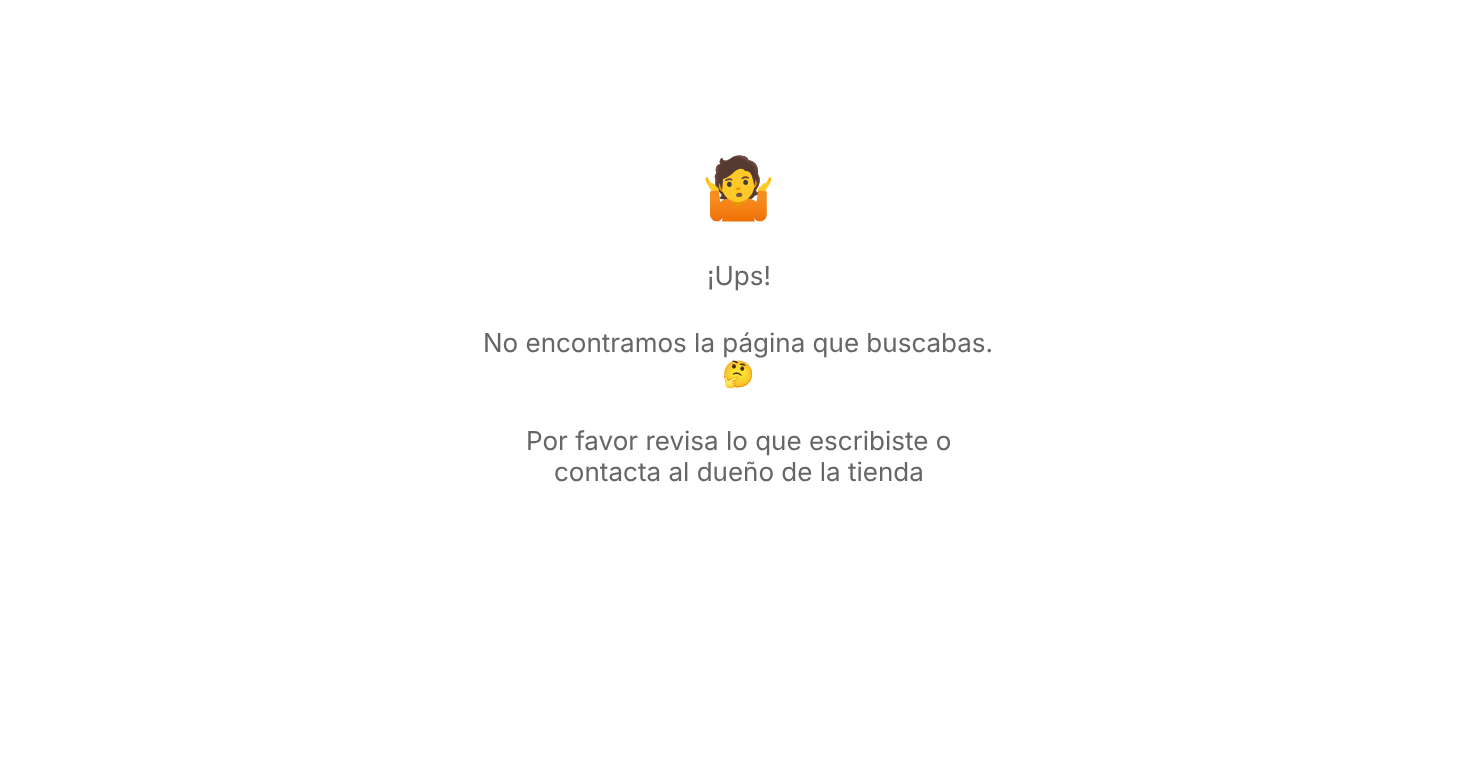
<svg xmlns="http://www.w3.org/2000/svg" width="1477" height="768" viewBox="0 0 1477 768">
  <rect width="100%" height="100%" fill="#ffffff"/>
  <text x="701" y="209" font-family="Noto Color Emoji" font-size="60" fill="#666666">🤷‍</text>
  <text x="707" y="285" font-family="Inter" font-size="26" fill="#666666">¡Ups!</text>
  <text x="483" y="352" font-family="Inter" font-size="26" fill="#666666">No encontramos la página que buscabas.</text>
  <text x="722" y="383" font-family="Noto Color Emoji" font-size="26" fill="#666666">🤔</text>
  <text x="526" y="450" font-family="Inter" font-size="26" fill="#666666">Por favor revisa lo que escribiste o</text>
  <text x="554" y="481" font-family="Inter" font-size="26" fill="#666666">contacta al dueño de la tienda</text>
</svg>
